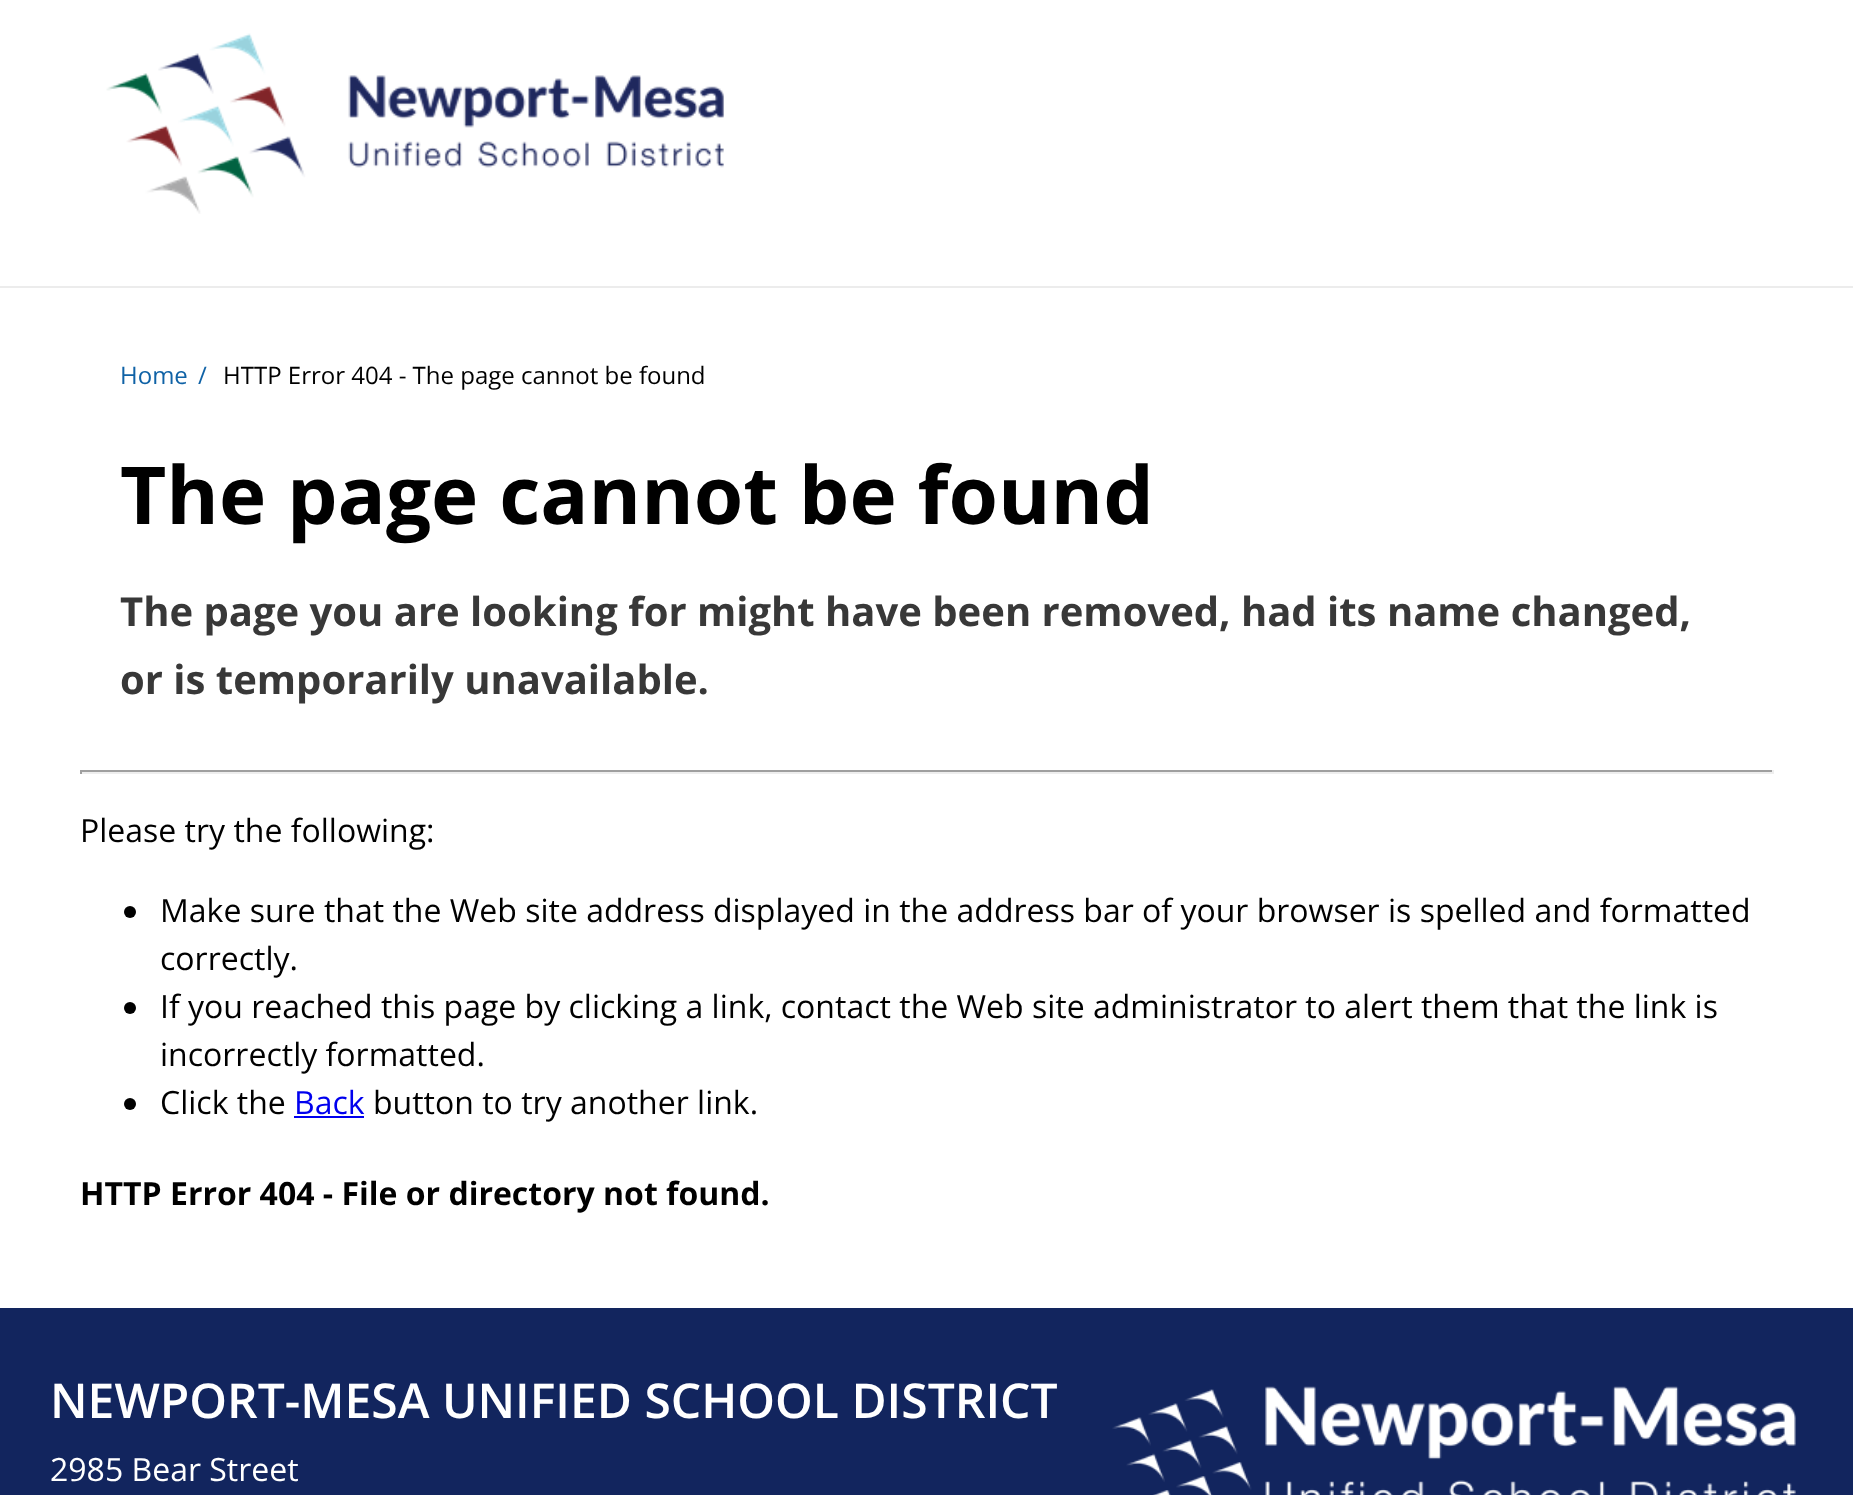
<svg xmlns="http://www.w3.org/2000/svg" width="1853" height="1495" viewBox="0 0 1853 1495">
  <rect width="100%" height="100%" fill="#ffffff"/>
  <rect x="0" y="286" width="1853" height="2" fill="#ececec"/>
  <image x="106" y="33" width="618" height="181" href="img1.png"/>
  <text x="120" y="384" font-family="Open Sans" font-size="24" fill="#0f62a6">Home</text>
  <text x="198" y="384" font-family="Open Sans" font-size="24" fill="#0f62a6">/</text>
  <text x="223" y="384" font-family="Open Sans" font-size="24" fill="#000000">HTTP Error 404 - The page cannot be found</text>
  <text x="120" y="524" font-family="Open Sans" font-size="80" font-weight="bold" fill="#000000">The page cannot be found</text>
  <text x="120" y="626" font-family="Open Sans" font-size="40" font-weight="bold" fill="#383838">The page you are looking for might have been removed, had its name changed,</text>
  <text x="120" y="694" font-family="Open Sans" font-size="40" font-weight="bold" fill="#383838">or is temporarily unavailable.</text>
  <rect x="80" y="770" width="1694" height="2" fill="#9f9f9f"/>
  <rect x="1772" y="770" width="2" height="4" fill="#eeeeee"/>
  <rect x="80" y="772" width="1694" height="2" fill="#eeeeee"/>
  <rect x="80" y="770" width="2" height="4" fill="#9f9f9f"/>
  <text x="80" y="842" font-family="Open Sans" font-size="32" fill="#000000">Please try the following:</text>
  <circle cx="130" cy="912" r="6" fill="#000000"/>
  <text x="160" y="922" font-family="Open Sans" font-size="32" fill="#000000">Make sure that the Web site address displayed in the address bar of your browser is spelled and formatted</text>
  <text x="160" y="970" font-family="Open Sans" font-size="32" fill="#000000">correctly.</text>
  <circle cx="130" cy="1008" r="6" fill="#000000"/>
  <text x="160" y="1018" font-family="Open Sans" font-size="32" fill="#000000">If you reached this page by clicking a link, contact the Web site administrator to alert them that the link is</text>
  <text x="160" y="1066" font-family="Open Sans" font-size="32" fill="#000000">incorrectly formatted.</text>
  <circle cx="130" cy="1104" r="6" fill="#000000"/>
  <text x="160" y="1114" font-family="Open Sans" font-size="32" fill="#000000">Click the</text>
  <text x="294" y="1114" font-family="Open Sans" font-size="32" fill="#0000ee">Back</text>
  <rect x="294" y="1116" width="70" height="2" fill="#0000ee"/>
  <text x="373" y="1114" font-family="Open Sans" font-size="32" fill="#000000">button to try another link.</text>
  <text x="80" y="1205" font-family="Open Sans" font-size="32" font-weight="bold" fill="#000000">HTTP Error 404 - File or directory not found.</text>
  <rect x="0" y="1308" width="1853" height="187" fill="#12255e"/>
  <text x="50" y="1418" font-family="Open Sans" font-size="48" font-weight="600" fill="#ffffff">NEWPORT-MESA UNIFIED SCHOOL DISTRICT</text>
  <text x="50" y="1481" font-family="Open Sans" font-size="32" fill="#ffffff">2985 Bear Street</text>
  <image x="1112" y="1386" width="684" height="109" href="img2.png"/>
</svg>
